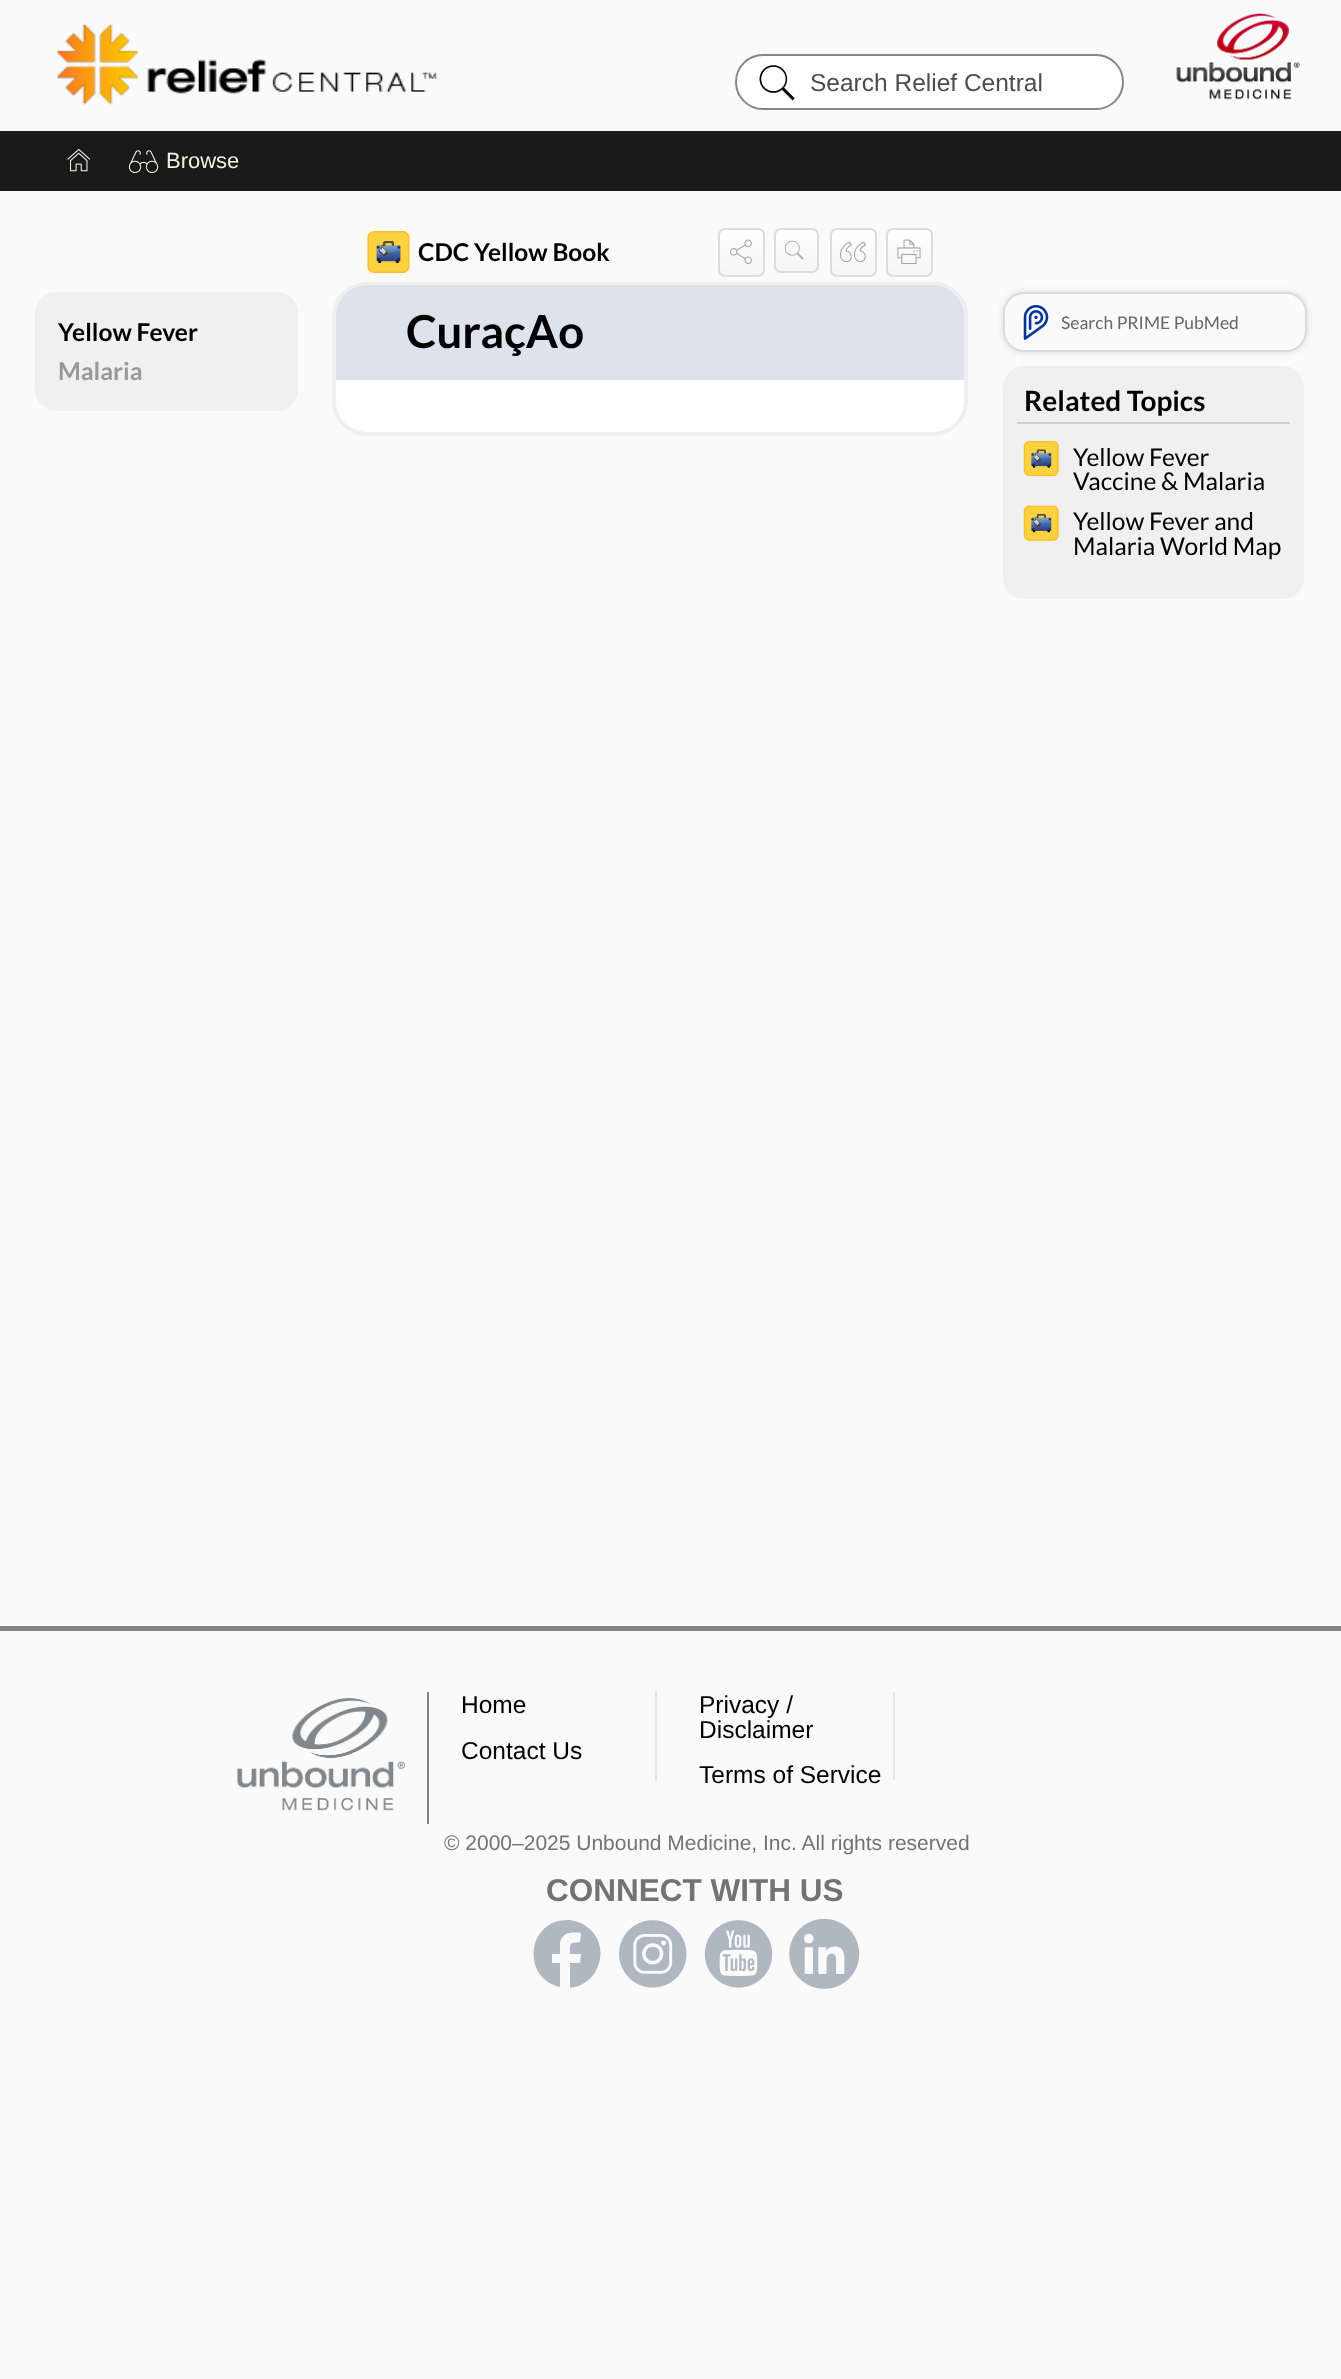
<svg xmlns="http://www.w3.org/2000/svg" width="1341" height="2379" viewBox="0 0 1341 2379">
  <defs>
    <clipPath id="clip1"><rect x="718" y="228" width="47" height="49" rx="7"/></clipPath>
    <linearGradient id="g1" gradientUnits="userSpaceOnUse" x1="741" y1="229" x2="741" y2="275"><stop offset="0" stop-color="#ffffff"/><stop offset="1" stop-color="#f5f5f5"/></linearGradient>
    <clipPath id="clip2"><rect x="774" y="228" width="45" height="45" rx="7"/></clipPath>
    <linearGradient id="g2" gradientUnits="userSpaceOnUse" x1="796" y1="229" x2="796" y2="271"><stop offset="0" stop-color="#ffffff"/><stop offset="1" stop-color="#f5f5f5"/></linearGradient>
    <clipPath id="clip3"><rect x="830" y="228" width="47" height="49" rx="7"/></clipPath>
    <linearGradient id="g3" gradientUnits="userSpaceOnUse" x1="853" y1="229" x2="853" y2="275"><stop offset="0" stop-color="#ffffff"/><stop offset="1" stop-color="#f5f5f5"/></linearGradient>
    <clipPath id="clip4"><rect x="886" y="228" width="47" height="49" rx="7"/></clipPath>
    <linearGradient id="g4" gradientUnits="userSpaceOnUse" x1="909" y1="229" x2="909" y2="275"><stop offset="0" stop-color="#ffffff"/><stop offset="1" stop-color="#f5f5f5"/></linearGradient>
    <filter id="blur1" x="-50%" y="-200%" width="200%" height="500%"><feGaussianBlur stdDeviation="3.5"/></filter>
  </defs>
  <rect width="100%" height="100%" fill="#fafafa"/>
  <image x="57" y="24" width="380" height="81" href="img1.png"/>
  <rect x="736" y="55" width="387" height="54" rx="27" fill="#ffffff" stroke="#878787" stroke-width="2"/>
  <image x="759" y="65" width="36" height="36" href="img2.png"/>
  <text x="810" y="91" font-family="Liberation Sans" font-size="24.5" fill="#4d4d4d">Search Relief Central</text>
  <image x="1176" y="13" width="124" height="87" href="img3.png"/>
  <rect x="0" y="131" width="1341" height="60" fill="#191919"/>
  <image x="67" y="149" width="24" height="23" href="img4.png"/>
  <image x="128" y="150" width="31" height="23" href="img5.png"/>
  <text x="166" y="168" font-family="Liberation Sans" font-size="22" fill="#f5efe0">Browse</text>
  <image x="367" y="231" width="43" height="42" href="img6.png"/>
  <text x="418" y="261" font-family="Lato" font-size="24.5" font-weight="bold" fill="#000000">CDC Yellow Book</text>
  <g clip-path="url(#clip1)">
    <rect x="718" y="229" width="47" height="46" fill="url(#g1)"/>
  </g>
  <rect x="719" y="229" width="45" height="47" rx="6" fill="none" stroke="#dbdddf" stroke-width="2"/>
  <image x="730" y="239" width="22" height="25" href="img7.png"/>
  <g clip-path="url(#clip2)">
    <rect x="774" y="229" width="45" height="42" fill="url(#g2)"/>
  </g>
  <rect x="775" y="229" width="43" height="43" rx="6" fill="none" stroke="#dbdddf" stroke-width="2"/>
  <image x="784" y="240" width="20" height="20" href="img8.png"/>
  <g clip-path="url(#clip3)">
    <rect x="830" y="229" width="47" height="46" fill="url(#g3)"/>
  </g>
  <rect x="831" y="229" width="45" height="47" rx="6" fill="none" stroke="#dbdddf" stroke-width="2"/>
  <image x="840" y="241" width="26" height="22" href="img9.png"/>
  <g clip-path="url(#clip4)">
    <rect x="886" y="229" width="47" height="46" fill="url(#g4)"/>
  </g>
  <rect x="887" y="229" width="45" height="47" rx="6" fill="none" stroke="#dbdddf" stroke-width="2"/>
  <image x="897" y="239" width="24" height="25" href="img10.png"/>
  <path d="M368 282H933C952.5 282 968 297.5 968 317V380H333V317C333 297.5 348.5 282 368 282Z" fill="#dee2ed"/>
  <path d="M368 282H933C952 282 968 297 968 317V380H332V317C332 297 348 282 368 282ZM368 285H933C950 285 964 299 964 317V380H336V317C336 299 350 285 368 285Z" fill="#efefef" fill-rule="evenodd"/>
  <text x="406" y="348" font-family="Lato" font-size="45.5" font-weight="bold" fill="#000000">CuraçAo</text>
  <path d="M333 380H968V401C968 420.5 952.5 436 933 436H368C348.5 436 333 420.5 333 401Z" fill="#ffffff"/>
  <path d="M332 380H968V401C968 420 952 436 933 436H368C348 436 332 420 332 401ZM336 380H964V401C964 418 950 432 933 432H368C350 432 336 418 336 401Z" fill="#efefef" fill-rule="evenodd"/>
  <rect x="35" y="292" width="263" height="119" rx="21" fill="#f0f0f0"/>
  <text x="58" y="341" font-family="Lato" font-size="24.5" font-weight="bold" fill="#000000">Yellow Fever</text>
  <text x="58" y="380" font-family="Lato" font-size="24.5" font-weight="bold" fill="#989898">Malaria</text>
  <rect x="1003" y="292" width="304" height="60" rx="21" fill="#dddddd" filter="url(#blur1)"/>
  <rect x="1004" y="293" width="302" height="58" rx="20" fill="#fafafa" stroke="#d9dbe0" stroke-width="2"/>
  <image x="1023" y="305" width="26" height="35" href="img11.png"/>
  <text x="1061" y="329" font-family="Lato" font-size="17.5" fill="#666666">Search PRIME PubMed</text>
  <rect x="1003" y="366" width="301" height="233" rx="21" fill="#f0f0f0"/>
  <rect x="1017" y="422" width="273" height="2" fill="#cccfd3"/>
  <text x="1024" y="411" font-family="Lato" font-size="28" font-weight="bold" fill="#000000">Related Topics</text>
  <image x="1023" y="441" width="36" height="35" href="img12.png"/>
  <text x="1073" y="466" font-family="Lato" font-size="24.5" fill="#000000">Yellow Fever</text>
  <text x="1073" y="490" font-family="Lato" font-size="24.5" fill="#000000">Vaccine &amp; Malaria</text>
  <image x="1023" y="505" width="36" height="36" href="img13.png"/>
  <text x="1073" y="530" font-family="Lato" font-size="24.5" fill="#000000">Yellow Fever and</text>
  <text x="1073" y="555" font-family="Lato" font-size="24.5" fill="#000000">Malaria World Map</text>
  <rect x="0" y="1626" width="1341" height="5" fill="#7f868c"/>
  <rect x="427" y="1692" width="2" height="132" fill="#7f868c"/>
  <image x="237" y="1698" width="168" height="113" href="img14.png"/>
  <rect x="655" y="1692" width="2" height="88" fill="#e4e7e9"/>
  <text x="461" y="1713" font-family="Liberation Sans" font-size="24.5" fill="#000000">Home</text>
  <text x="461" y="1759" font-family="Liberation Sans" font-size="24.5" fill="#000000">Contact Us</text>
  <rect x="893" y="1692" width="2" height="88" fill="#e4e7e9"/>
  <text x="699" y="1713" font-family="Liberation Sans" font-size="24.5" fill="#000000">Privacy /</text>
  <text x="699" y="1738" font-family="Liberation Sans" font-size="24.5" fill="#000000">Disclaimer</text>
  <text x="699" y="1783" font-family="Liberation Sans" font-size="24.5" fill="#000000">Terms of Service</text>
  <text x="444" y="1850" font-family="Liberation Sans" font-size="21" fill="#737373">© 2000–2025 Unbound Medicine, Inc. All rights reserved</text>
  <text x="546" y="1901" font-family="Liberation Sans" font-size="31.5" font-weight="bold" fill="#737373">CONNECT WITH US</text>
  <path d="M567 1920C527 1920 521 1978 560 1987V1963H552V1954H560V1943C562 1932 572 1932 581 1933L580 1942L572 1943C569 1944 570 1952 570 1954H581L580 1963H570V1988C600 1985 612 1945 587 1927C581 1922 574 1920 567 1920Z" fill="#afb8c0"/>
  <image x="619" y="1920" width="68" height="68" href="img15.png"/>
  <image x="704" y="1920" width="69" height="68" href="img16.png"/>
  <image x="789" y="1918" width="71" height="71" href="img17.png"/>
</svg>
